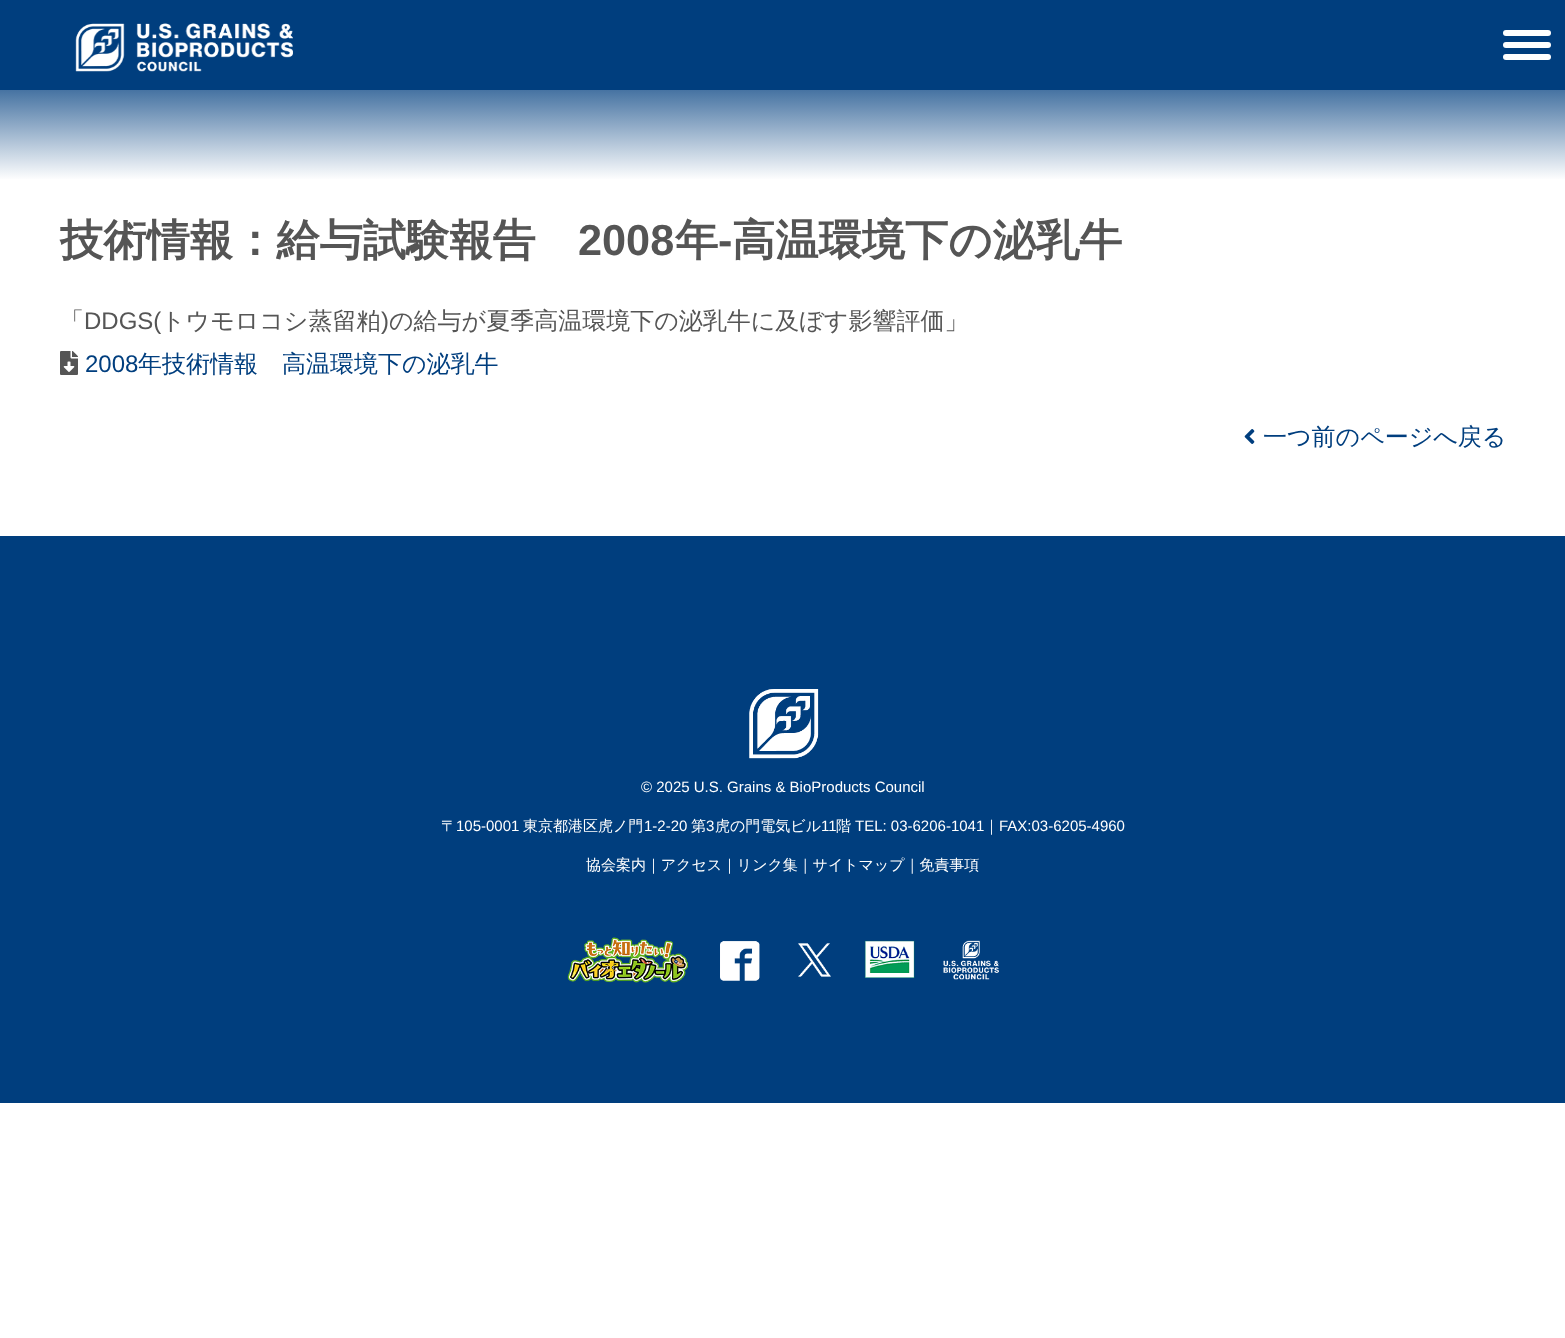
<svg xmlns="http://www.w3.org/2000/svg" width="1565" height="1338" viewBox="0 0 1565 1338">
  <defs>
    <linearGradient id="g1" gradientUnits="userSpaceOnUse" x1="783" y1="0" x2="783" y2="180"><stop offset="0" stop-color="#003e7e"/><stop offset="0.5" stop-color="#4673a2"/><stop offset="1" stop-color="#ffffff"/></linearGradient>
  </defs>
  <rect width="100%" height="100%" fill="#ffffff"/>
  <rect x="0" y="90" width="1565" height="89" fill="url(#g1)"/>
  <rect x="0" y="0" width="1565" height="90" fill="#003e7e"/>
  <rect x="1503" y="30" width="48" height="6" rx="3" fill="#ffffff"/>
  <rect x="1503" y="42" width="48" height="6" rx="3" fill="#ffffff"/>
  <rect x="1503" y="54" width="48" height="6" rx="3" fill="#ffffff"/>
  <image x="75" y="23" width="218" height="49" href="img1.png"/>
  <text x="60" y="255" font-family="WenQuanYi Zen Hei" font-size="43.25" font-weight="bold" fill="#555555">技術情報：給与試験報告</text>
  <text x="578" y="255" font-family="Liberation Sans" font-size="43.25" font-weight="bold" fill="#555555">2008</text>
  <text x="675" y="255" font-family="WenQuanYi Zen Hei" font-size="43.25" font-weight="bold" fill="#555555">年</text>
  <text x="718" y="255" font-family="Liberation Sans" font-size="43.25" font-weight="bold" fill="#555555">-</text>
  <text x="732" y="255" font-family="WenQuanYi Zen Hei" font-size="43.25" font-weight="bold" fill="#555555">高温環境下の泌乳牛</text>
  <text x="60" y="329" font-family="WenQuanYi Zen Hei" font-size="24" font-weight="500" fill="#555555">「</text>
  <text x="84" y="329" font-family="Liberation Sans" font-size="24" fill="#555555">DDGS(</text>
  <text x="161" y="329" font-family="WenQuanYi Zen Hei" font-size="24" font-weight="500" fill="#555555">トウモロコシ蒸留粕</text>
  <text x="381" y="329" font-family="Liberation Sans" font-size="24" fill="#555555">)</text>
  <text x="389" y="329" font-family="WenQuanYi Zen Hei" font-size="24" font-weight="500" fill="#555555">の給与が夏季高温環境下の泌乳牛に及ぼす影響評価」</text>
  <image x="60" y="351" width="18" height="24" href="img2.png"/>
  <text x="85" y="372" font-family="Liberation Sans" font-size="24" fill="#003e7e">2008</text>
  <text x="138" y="372" font-family="WenQuanYi Zen Hei" font-size="24" font-weight="500" fill="#003e7e">年技術情報　高温環境下の泌乳牛</text>
  <image x="1244" y="429" width="11" height="15" href="img3.png"/>
  <text x="1263" y="445" font-family="WenQuanYi Zen Hei" font-size="24" font-weight="500" fill="#003e7e">一つ前のページへ戻る</text>
  <rect x="0" y="536" width="1565" height="567" fill="#003e7e"/>
  <image x="749" y="689" width="70" height="70" href="img4.png"/>
  <text x="641" y="792" font-family="Liberation Sans" font-size="15" fill="#ffffff">© 2025 U.S. Grains &amp; BioProducts Council</text>
  <text x="441" y="831" font-family="WenQuanYi Zen Hei" font-size="15" font-weight="500" fill="#ffffff">〒</text>
  <text x="456" y="831" font-family="Liberation Sans" font-size="15" fill="#ffffff">105-0001</text>
  <text x="523" y="831" font-family="WenQuanYi Zen Hei" font-size="15" font-weight="500" fill="#ffffff">東京都港区虎ノ門</text>
  <text x="644" y="831" font-family="Liberation Sans" font-size="15" fill="#ffffff">1-2-20</text>
  <text x="691" y="831" font-family="WenQuanYi Zen Hei" font-size="15" font-weight="500" fill="#ffffff">第</text>
  <text x="706" y="831" font-family="Liberation Sans" font-size="15" fill="#ffffff">3</text>
  <text x="715" y="831" font-family="WenQuanYi Zen Hei" font-size="15" font-weight="500" fill="#ffffff">虎の門電気ビル</text>
  <text x="821" y="831" font-family="Liberation Sans" font-size="15" fill="#ffffff">11</text>
  <text x="836" y="831" font-family="WenQuanYi Zen Hei" font-size="15" font-weight="500" fill="#ffffff">階</text>
  <text x="855" y="831" font-family="Liberation Sans" font-size="15" fill="#ffffff">TEL: 03-6206-1041</text>
  <text x="984" y="831" font-family="WenQuanYi Zen Hei" font-size="15" font-weight="500" fill="#ffffff">｜</text>
  <text x="999" y="831" font-family="Liberation Sans" font-size="15" fill="#ffffff">FAX:03-6205-4960</text>
  <text x="586" y="870" font-family="WenQuanYi Zen Hei" font-size="15" font-weight="500" fill="#ffffff">協会案内｜アクセス｜リンク集｜サイトマップ｜免責事項</text>
  <image x="567" y="937" width="121" height="46" href="img5.png"/>
  <image x="720" y="941" width="40" height="40" href="img6.png"/>
  <image x="798" y="943" width="33" height="34" href="img7.png"/>
  <image x="864" y="940" width="51" height="38" href="img8.png"/>
  <image x="943" y="940" width="56" height="40" href="img9.png"/>
</svg>
